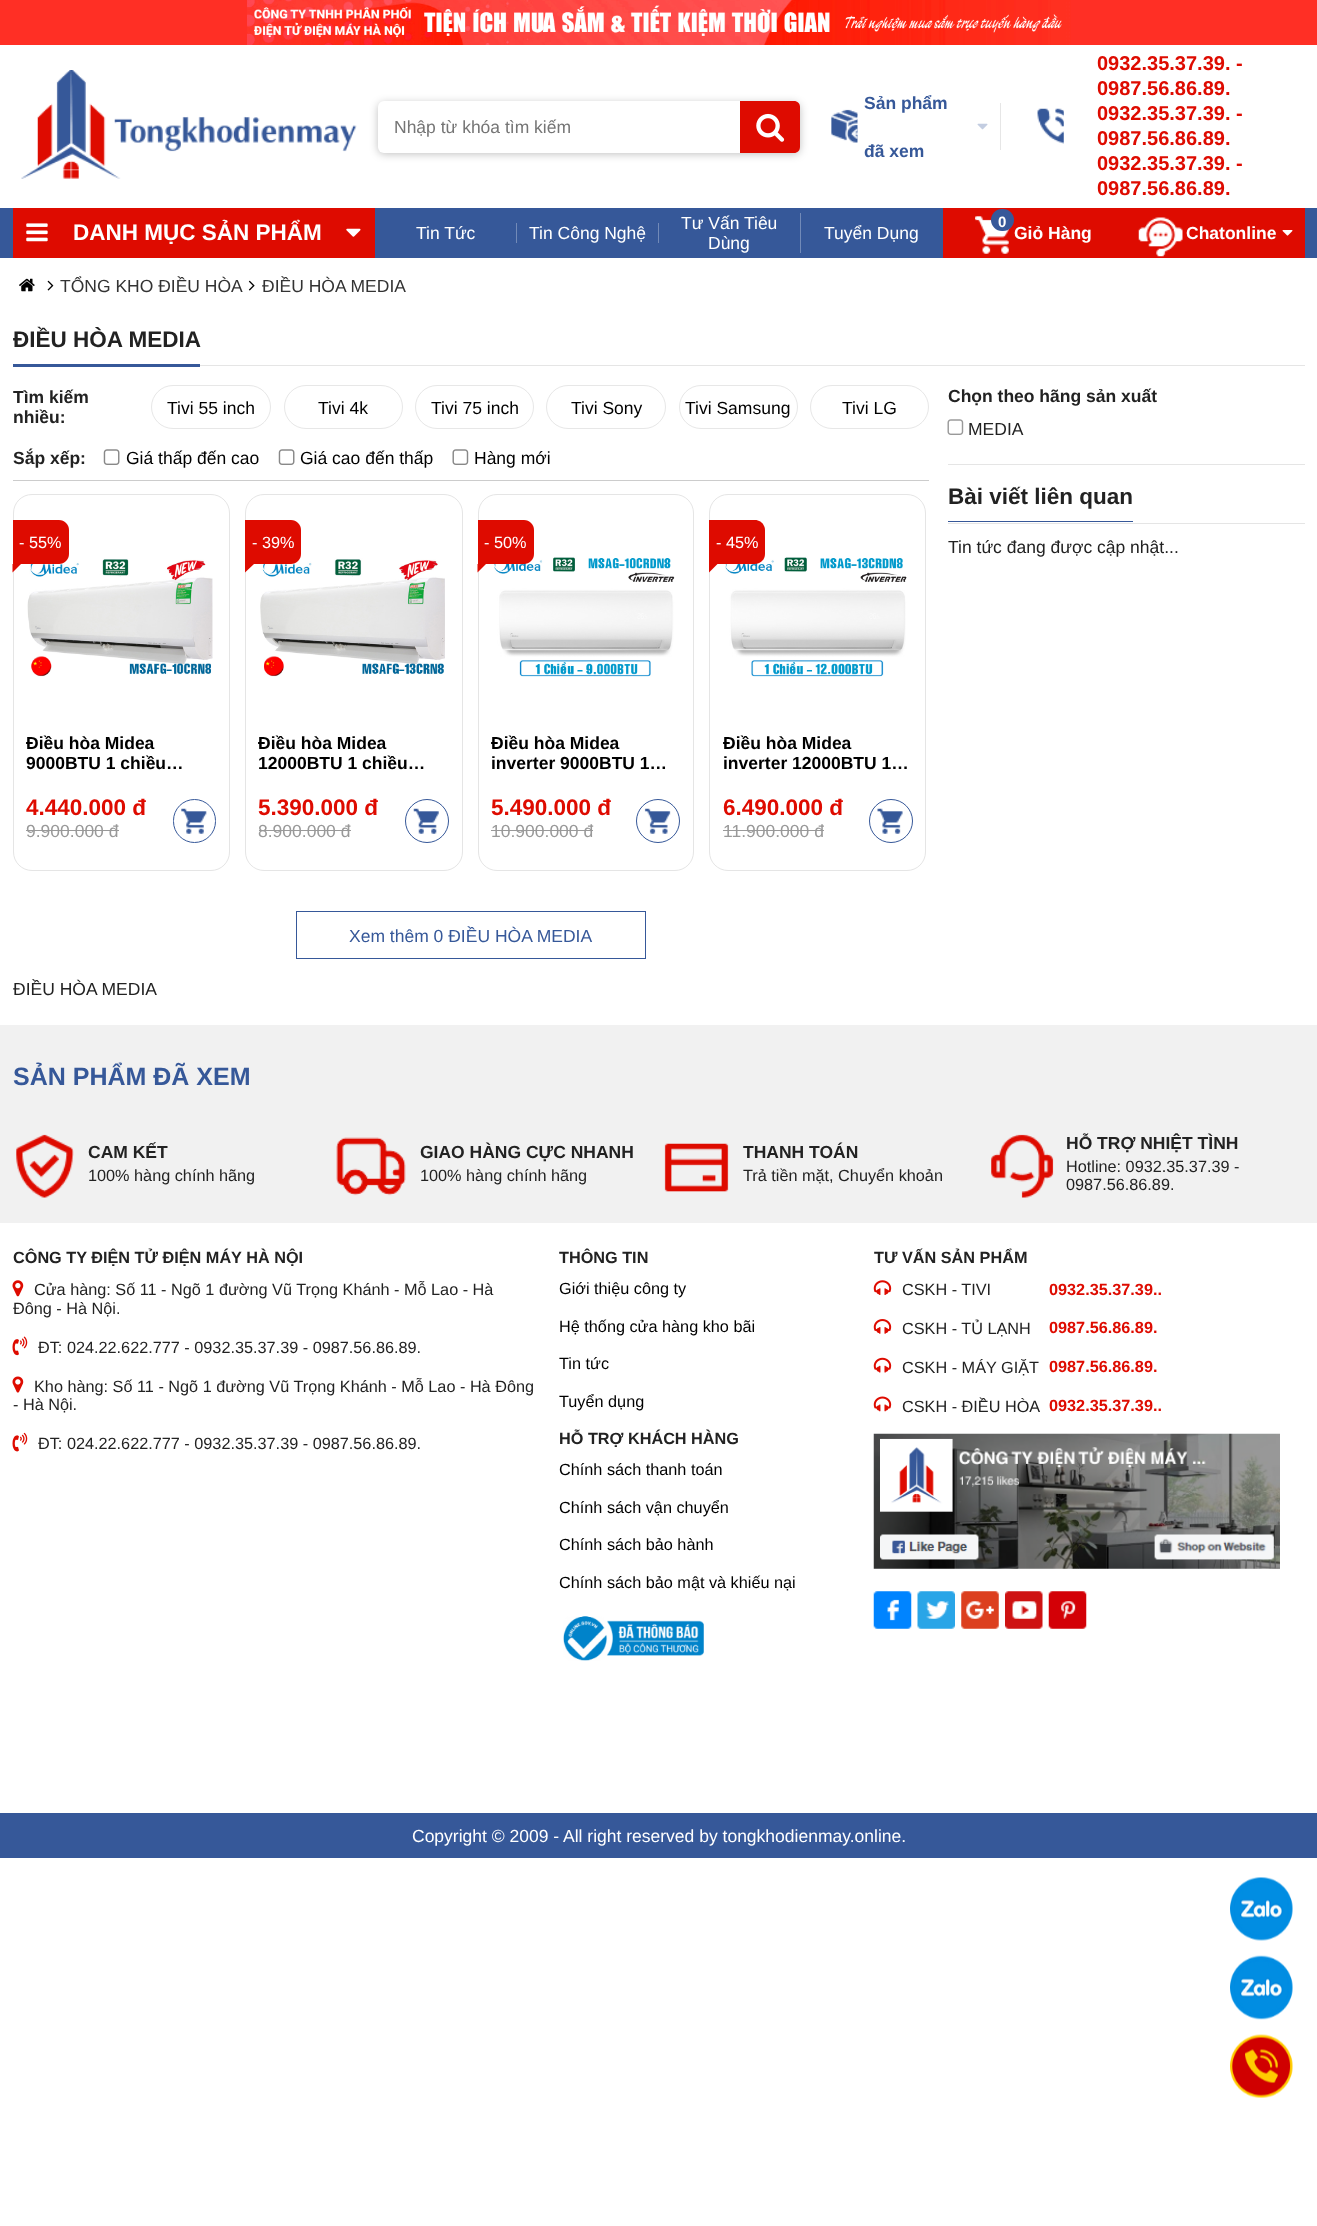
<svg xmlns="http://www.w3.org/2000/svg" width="1317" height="2226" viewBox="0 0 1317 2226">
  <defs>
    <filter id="blur1" x="-50%" y="-200%" width="200%" height="500%"><feGaussianBlur stdDeviation="4"/></filter>
  </defs>
  <rect width="100%" height="100%" fill="#ffffff"/>
  <image x="0" y="0" width="1317" height="45" href="img1.png"/>
  <image x="21" y="70" width="336" height="109" href="img2.png"/>
  <rect x="378" y="103" width="422" height="51" rx="6" fill="#000000" fill-opacity="0.25" filter="url(#blur1)"/>
  <rect x="378" y="101" width="422" height="52" rx="6" fill="#ffffff"/>
  <text x="394" y="133" font-family="Liberation Sans" font-size="17.5" fill="#757575">Nhập từ khóa tìm kiếm</text>
  <path d="M740 101H794C797.5 101 800 103.5 800 107V147C800 150.5 797.5 153 794 153H740Z" fill="#de0b00"/>
  <image x="756" y="113" width="29" height="29" href="img3.png"/>
  <rect x="1000" y="103" width="1" height="47" fill="#e6e6e6"/>
  <image x="831" y="109" width="27" height="34" href="img4.png"/>
  <text x="864" y="109" font-family="Liberation Sans" font-size="17.5" font-weight="bold" fill="#365899">Sản phẩm</text>
  <text x="864" y="157" font-family="Liberation Sans" font-size="17.5" font-weight="bold" fill="#365899">đã xem</text>
  <image x="977" y="123" width="11" height="7" href="img5.png"/>
  <image x="1037" y="108" width="27" height="36" href="img6.png"/>
  <text x="1097" y="70" font-family="Liberation Sans" font-size="20" font-weight="bold" fill="#de0b00">0932.35.37.39. -</text>
  <text x="1097" y="95" font-family="Liberation Sans" font-size="20" font-weight="bold" fill="#de0b00">0987.56.86.89.</text>
  <text x="1097" y="120" font-family="Liberation Sans" font-size="20" font-weight="bold" fill="#de0b00">0932.35.37.39. -</text>
  <text x="1097" y="145" font-family="Liberation Sans" font-size="20" font-weight="bold" fill="#de0b00">0987.56.86.89.</text>
  <text x="1097" y="170" font-family="Liberation Sans" font-size="20" font-weight="bold" fill="#de0b00">0932.35.37.39. -</text>
  <text x="1097" y="195" font-family="Liberation Sans" font-size="20" font-weight="bold" fill="#de0b00">0987.56.86.89.</text>
  <rect x="0" y="208" width="1317" height="50" fill="#365899"/>
  <rect x="13" y="208" width="362" height="50" fill="#de0b00"/>
  <image x="26" y="223" width="22" height="19" href="img7.png"/>
  <text x="73" y="240" font-family="Liberation Sans" font-size="22.5" font-weight="bold" fill="#ffffff">DANH MỤC SẢN PHẨM</text>
  <image x="346" y="228" width="15" height="9" href="img8.png"/>
  <rect x="516" y="223" width="1" height="20" fill="#728ab8"/>
  <text x="416" y="239" font-family="Liberation Sans" font-size="17.5" fill="#ffffff">Tin Tức</text>
  <rect x="658" y="223" width="1" height="20" fill="#728ab8"/>
  <text x="529" y="239" font-family="Liberation Sans" font-size="17.5" fill="#ffffff">Tin Công Nghệ</text>
  <rect x="800" y="213" width="1" height="40" fill="#728ab8"/>
  <text x="681" y="229" font-family="Liberation Sans" font-size="17.5" fill="#ffffff">Tư Vấn Tiêu</text>
  <text x="708" y="249" font-family="Liberation Sans" font-size="17.5" fill="#ffffff">Dùng</text>
  <text x="824" y="239" font-family="Liberation Sans" font-size="17.5" fill="#ffffff">Tuyển Dụng</text>
  <rect x="943" y="208" width="362" height="50" fill="#de0b00"/>
  <image x="975" y="216" width="38" height="38" href="img9.png"/>
  <rect x="991" y="209" width="23" height="22" rx="11" fill="#365899"/>
  <text x="998" y="227" font-family="Liberation Sans" font-size="15" font-weight="bold" fill="#ffffff">0</text>
  <text x="1014" y="239" font-family="Liberation Sans" font-size="17.5" font-weight="bold" fill="#ffffff">Giỏ Hàng</text>
  <image x="1138" y="217" width="45" height="40" href="img10.png"/>
  <text x="1186" y="239" font-family="Liberation Sans" font-size="17.5" font-weight="bold" fill="#ffffff">Chatonline</text>
  <image x="1282" y="230" width="11" height="6" href="img11.png"/>
  <image x="19" y="278" width="16" height="14" href="img12.png"/>
  <image x="47" y="280" width="7" height="11" href="img13.png"/>
  <text x="60" y="292" font-family="Liberation Sans" font-size="17.5" fill="#333333">TỔNG KHO ĐIỀU HÒA</text>
  <image x="248" y="280" width="7" height="11" href="img14.png"/>
  <text x="262" y="292" font-family="Liberation Sans" font-size="17.5" fill="#333333">ĐIỀU HÒA MEDIA</text>
  <rect x="200" y="365" width="1105" height="1" fill="#e5e5e5"/>
  <text x="13" y="347" font-family="Liberation Sans" font-size="22.5" font-weight="bold" fill="#222222">ĐIỀU HÒA MEDIA</text>
  <rect x="13" y="364" width="187" height="3" fill="#365899"/>
  <text x="13" y="403" font-family="Liberation Sans" font-size="17.5" font-weight="bold" fill="#222222">Tìm kiếm</text>
  <text x="13" y="423" font-family="Liberation Sans" font-size="17.5" font-weight="bold" fill="#222222">nhiều:</text>
  <rect x="151.5" y="385.5" width="119" height="43" rx="21.5" fill="none" stroke="#e7e7e7"/>
  <text x="167" y="414" font-family="Liberation Sans" font-size="17.5" fill="#000000">Tivi 55 inch</text>
  <rect x="284.5" y="385.5" width="118" height="43" rx="21.5" fill="none" stroke="#e7e7e7"/>
  <text x="318" y="414" font-family="Liberation Sans" font-size="17.5" fill="#000000">Tivi 4k</text>
  <rect x="415.5" y="385.5" width="118" height="43" rx="21.5" fill="none" stroke="#e7e7e7"/>
  <text x="431" y="414" font-family="Liberation Sans" font-size="17.5" fill="#000000">Tivi 75 inch</text>
  <rect x="546.5" y="385.5" width="119" height="43" rx="21.5" fill="none" stroke="#e7e7e7"/>
  <text x="571" y="414" font-family="Liberation Sans" font-size="17.5" fill="#000000">Tivi Sony</text>
  <rect x="679.5" y="385.5" width="118" height="43" rx="21.5" fill="none" stroke="#e7e7e7"/>
  <text x="685" y="414" font-family="Liberation Sans" font-size="17.5" fill="#000000">Tivi Samsung</text>
  <rect x="810.5" y="385.5" width="118" height="43" rx="21.5" fill="none" stroke="#e7e7e7"/>
  <text x="842" y="414" font-family="Liberation Sans" font-size="17.5" fill="#000000">Tivi LG</text>
  <rect x="13" y="480" width="916" height="1" fill="#cccccc"/>
  <text x="13" y="464" font-family="Liberation Sans" font-size="17.5" font-weight="bold" fill="#222222">Sắp xếp:</text>
  <image x="103" y="449" width="17" height="16" href="img15.png"/>
  <text x="126" y="464" font-family="Liberation Sans" font-size="17.5" fill="#000000">Giá thấp đến cao</text>
  <image x="278" y="449" width="17" height="16" href="img15.png"/>
  <text x="300" y="464" font-family="Liberation Sans" font-size="17.5" fill="#000000">Giá cao đến thấp</text>
  <image x="452" y="449" width="17" height="16" href="img16.png"/>
  <text x="474" y="464" font-family="Liberation Sans" font-size="17.5" fill="#000000">Hàng mới</text>
  <rect x="13.5" y="494.5" width="216" height="376" rx="18.5" fill="none" stroke="#e5e5e5"/>
  <image x="27" y="557" width="186" height="120" href="img17.png"/>
  <path d="M13 520H59C64.5 520 69 524.5 69 530V554C69 559.5 64.5 564 59 564H13Z" fill="#de0b00"/>
  <text x="19" y="548" font-family="Liberation Sans" font-size="16.25" fill="#ffffff">- 55%</text>
  <path d="M12.5 572.5V564H21Z" fill="#de0b00"/>
  <text x="26" y="749" font-family="Liberation Sans" font-size="17.5" font-weight="bold" fill="#000000">Điều hòa Midea</text>
  <text x="26" y="769" font-family="Liberation Sans" font-size="17.5" font-weight="bold" fill="#000000">9000BTU 1 chiều…</text>
  <text x="26" y="815" font-family="Liberation Sans" font-size="22.5" font-weight="bold" fill="#de0b00">4.440.000 đ</text>
  <text x="26" y="837" font-family="Liberation Sans" font-size="17.5" fill="#999999">9.900.000 đ</text>
  <rect x="26" y="830" width="93" height="1" fill="#999999"/>
  <image x="181" y="808" width="26" height="26" href="img18.png"/>
  <rect x="173.5" y="799.5" width="42" height="43" rx="21" fill="none" stroke="#365899"/>
  <rect x="245.5" y="494.5" width="217" height="376" rx="18.5" fill="none" stroke="#e5e5e5"/>
  <image x="260" y="557" width="185" height="120" href="img19.png"/>
  <path d="M245 520H291C296.5 520 301 524.5 301 530V554C301 559.5 296.5 564 291 564H245Z" fill="#de0b00"/>
  <text x="252" y="548" font-family="Liberation Sans" font-size="16.25" fill="#ffffff">- 39%</text>
  <path d="M245 572.5V564H254Z" fill="#de0b00"/>
  <text x="258" y="749" font-family="Liberation Sans" font-size="17.5" font-weight="bold" fill="#000000">Điều hòa Midea</text>
  <text x="258" y="769" font-family="Liberation Sans" font-size="17.5" font-weight="bold" fill="#000000">12000BTU 1 chiều…</text>
  <text x="258" y="815" font-family="Liberation Sans" font-size="22.5" font-weight="bold" fill="#de0b00">5.390.000 đ</text>
  <text x="258" y="837" font-family="Liberation Sans" font-size="17.5" fill="#999999">8.900.000 đ</text>
  <rect x="259" y="830" width="92" height="1" fill="#999999"/>
  <image x="413" y="808" width="26" height="26" href="img20.png"/>
  <circle cx="427" cy="821" r="21.5" fill="none" stroke="#365899"/>
  <rect x="478.5" y="494.5" width="215" height="376" rx="18.5" fill="none" stroke="#e5e5e5"/>
  <image x="494" y="554" width="181" height="123" href="img21.png"/>
  <path d="M478 520H524C529.5 520 534 524.5 534 530V554C534 559.5 529.5 564 524 564H478Z" fill="#de0b00"/>
  <text x="484" y="548" font-family="Liberation Sans" font-size="16.25" fill="#ffffff">- 50%</text>
  <path d="M477.5 572.5V564H486Z" fill="#de0b00"/>
  <text x="491" y="749" font-family="Liberation Sans" font-size="17.5" font-weight="bold" fill="#000000">Điều hòa Midea</text>
  <text x="491" y="769" font-family="Liberation Sans" font-size="17.5" font-weight="bold" fill="#000000">inverter 9000BTU 1…</text>
  <text x="491" y="815" font-family="Liberation Sans" font-size="22.5" font-weight="bold" fill="#de0b00">5.490.000 đ</text>
  <text x="491" y="837" font-family="Liberation Sans" font-size="17.5" fill="#999999">10.900.000 đ</text>
  <rect x="491" y="830" width="102" height="1" fill="#999999"/>
  <image x="644" y="808" width="27" height="26" href="img22.png"/>
  <circle cx="658" cy="821" r="21.5" fill="none" stroke="#365899"/>
  <rect x="709.5" y="494.5" width="216" height="376" rx="18.5" fill="none" stroke="#e5e5e5"/>
  <image x="725" y="554" width="182" height="123" href="img23.png"/>
  <path d="M709 520H755C760.5 520 765 524.5 765 530V554C765 559.5 760.5 564 755 564H709Z" fill="#de0b00"/>
  <text x="716" y="548" font-family="Liberation Sans" font-size="16.25" fill="#ffffff">- 45%</text>
  <path d="M709 572.5V564H717.5Z" fill="#de0b00"/>
  <text x="723" y="749" font-family="Liberation Sans" font-size="17.5" font-weight="bold" fill="#000000">Điều hòa Midea</text>
  <text x="723" y="769" font-family="Liberation Sans" font-size="17.5" font-weight="bold" fill="#000000">inverter 12000BTU 1…</text>
  <text x="723" y="815" font-family="Liberation Sans" font-size="22.5" font-weight="bold" fill="#de0b00">6.490.000 đ</text>
  <text x="723" y="837" font-family="Liberation Sans" font-size="17.5" fill="#999999">11.900.000 đ</text>
  <rect x="723" y="830" width="101" height="1" fill="#999999"/>
  <image x="877" y="808" width="26" height="26" href="img24.png"/>
  <circle cx="891" cy="821" r="21.5" fill="none" stroke="#365899"/>
  <rect x="296.5" y="911.5" width="349" height="47" fill="none" stroke="#365899"/>
  <text x="349" y="942" font-family="Liberation Sans" font-size="17.5" fill="#365899">Xem thêm 0 ĐIỀU HÒA MEDIA</text>
  <text x="13" y="995" font-family="Liberation Sans" font-size="17.5" fill="#222222">ĐIỀU HÒA MEDIA</text>
  <rect x="948" y="464" width="357" height="1" fill="#e5e5e5"/>
  <text x="948" y="402" font-family="Liberation Sans" font-size="17.5" font-weight="bold" fill="#222222">Chọn theo hãng sản xuất</text>
  <image x="947" y="419" width="17" height="16" href="img25.png"/>
  <text x="968" y="435" font-family="Liberation Sans" font-size="17.5" fill="#222222">MEDIA</text>
  <rect x="948" y="523" width="357" height="1" fill="#e5e5e5"/>
  <text x="948" y="504" font-family="Liberation Sans" font-size="22.5" font-weight="bold" fill="#222222">Bài viết liên quan</text>
  <rect x="948" y="521" width="185" height="1" fill="#365899"/>
  <text x="948" y="553" font-family="Liberation Sans" font-size="17.5" fill="#222222">Tin tức đang được cập nhật...</text>
  <rect x="0" y="1025" width="1317" height="198" fill="#f1f1f1"/>
  <text x="13" y="1085" font-family="Liberation Sans" font-size="25" font-weight="bold" fill="#365899">SẢN PHẨM ĐÃ XEM</text>
  <image x="16" y="1134" width="58" height="64" href="img26.png"/>
  <text x="88" y="1158" font-family="Liberation Sans" font-size="17.5" font-weight="bold" fill="#222222">CAM KẾT</text>
  <text x="88" y="1181" font-family="Liberation Sans" font-size="16.25" fill="#222222">100% hàng chính hãng</text>
  <image x="336" y="1137" width="70" height="59" href="img27.png"/>
  <text x="420" y="1158" font-family="Liberation Sans" font-size="17.5" font-weight="bold" fill="#222222">GIAO HÀNG CỰC NHANH</text>
  <text x="420" y="1181" font-family="Liberation Sans" font-size="16.25" fill="#222222">100% hàng chính hãng</text>
  <image x="664" y="1143" width="65" height="49" href="img28.png"/>
  <text x="743" y="1158" font-family="Liberation Sans" font-size="17.5" font-weight="bold" fill="#222222">THANH TOÁN</text>
  <text x="743" y="1181" font-family="Liberation Sans" font-size="16.25" fill="#222222">Trả tiền mặt, Chuyển khoản</text>
  <image x="991" y="1134" width="63" height="64" href="img29.png"/>
  <text x="1066" y="1149" font-family="Liberation Sans" font-size="17.5" font-weight="bold" fill="#222222">HỖ TRỢ NHIỆT TÌNH</text>
  <text x="1066" y="1172" font-family="Liberation Sans" font-size="16.25" fill="#222222">Hotline: 0932.35.37.39 -</text>
  <text x="1066" y="1190" font-family="Liberation Sans" font-size="16.25" fill="#222222">0987.56.86.89.</text>
  <text x="13" y="1263" font-family="Liberation Sans" font-size="16.25" font-weight="bold" fill="#222222">CÔNG TY ĐIỆN TỬ ĐIỆN MÁY HÀ NỘI</text>
  <image x="12" y="1280" width="12" height="17" href="img30.png"/>
  <text x="34" y="1295" font-family="Liberation Sans" font-size="16.25" fill="#222222">Cửa hàng: Số 11 - Ngõ 1 đường Vũ Trọng Khánh - Mỗ Lao - Hà</text>
  <text x="13" y="1314" font-family="Liberation Sans" font-size="16.25" fill="#222222">Đông - Hà Nội.</text>
  <image x="12" y="1336" width="16" height="20" href="img31.png"/>
  <text x="38" y="1353" font-family="Liberation Sans" font-size="16.25" fill="#222222">ĐT: 024.22.622.777 - 0932.35.37.39 - 0987.56.86.89.</text>
  <image x="12" y="1376" width="12" height="17" href="img32.png"/>
  <text x="34" y="1392" font-family="Liberation Sans" font-size="16.25" fill="#222222">Kho hàng: Số 11 - Ngõ 1 đường Vũ Trọng Khánh - Mỗ Lao - Hà Đông</text>
  <text x="13" y="1410" font-family="Liberation Sans" font-size="16.25" fill="#222222">- Hà Nội.</text>
  <image x="12" y="1432" width="16" height="20" href="img33.png"/>
  <text x="38" y="1449" font-family="Liberation Sans" font-size="16.25" fill="#222222">ĐT: 024.22.622.777 - 0932.35.37.39 - 0987.56.86.89.</text>
  <text x="559" y="1263" font-family="Liberation Sans" font-size="16.25" font-weight="bold" fill="#222222">THÔNG TIN</text>
  <text x="559" y="1294" font-family="Liberation Sans" font-size="16.25" fill="#000000">Giới thiệu công ty</text>
  <text x="559" y="1332" font-family="Liberation Sans" font-size="16.25" fill="#000000">Hệ thống cửa hàng kho bãi</text>
  <text x="559" y="1369" font-family="Liberation Sans" font-size="16.25" fill="#000000">Tin tức</text>
  <text x="559" y="1407" font-family="Liberation Sans" font-size="16.25" fill="#000000">Tuyển dụng</text>
  <text x="559" y="1444" font-family="Liberation Sans" font-size="16.25" font-weight="bold" fill="#222222">HỖ TRỢ KHÁCH HÀNG</text>
  <text x="559" y="1475" font-family="Liberation Sans" font-size="16.25" fill="#000000">Chính sách thanh toán</text>
  <text x="559" y="1513" font-family="Liberation Sans" font-size="16.25" fill="#000000">Chính sách vận chuyển</text>
  <text x="559" y="1550" font-family="Liberation Sans" font-size="16.25" fill="#000000">Chính sách bảo hành</text>
  <text x="559" y="1588" font-family="Liberation Sans" font-size="16.25" fill="#000000">Chính sách bảo mật và khiếu nại</text>
  <image x="563" y="1616" width="141" height="45" href="img34.png"/>
  <text x="874" y="1263" font-family="Liberation Sans" font-size="16.25" font-weight="bold" fill="#222222">TƯ VẤN SẢN PHẨM</text>
  <image x="873" y="1280" width="19" height="15" href="img35.png"/>
  <text x="902" y="1295" font-family="Liberation Sans" font-size="16.25" fill="#222222">CSKH - TIVI</text>
  <text x="1049" y="1295" font-family="Liberation Sans" font-size="16.25" font-weight="bold" fill="#de0b00">0932.35.37.39..</text>
  <image x="873" y="1319" width="19" height="15" href="img36.png"/>
  <text x="902" y="1334" font-family="Liberation Sans" font-size="16.25" fill="#222222">CSKH - TỦ LẠNH</text>
  <text x="1049" y="1333" font-family="Liberation Sans" font-size="16.25" font-weight="bold" fill="#de0b00">0987.56.86.89.</text>
  <image x="873" y="1357" width="19" height="16" href="img37.png"/>
  <text x="902" y="1373" font-family="Liberation Sans" font-size="16.25" fill="#222222">CSKH - MÁY GIẶT</text>
  <text x="1049" y="1372" font-family="Liberation Sans" font-size="16.25" font-weight="bold" fill="#de0b00">0987.56.86.89.</text>
  <image x="873" y="1396" width="19" height="16" href="img38.png"/>
  <text x="902" y="1412" font-family="Liberation Sans" font-size="16.25" fill="#222222">CSKH - ĐIỀU HÒA</text>
  <text x="1049" y="1411" font-family="Liberation Sans" font-size="16.25" font-weight="bold" fill="#de0b00">0932.35.37.39..</text>
  <image x="873" y="1433" width="407" height="136" href="img39.png"/>
  <image x="873" y="1591" width="39" height="38" href="img40.png"/>
  <image x="917" y="1591" width="38" height="38" href="img41.png"/>
  <image x="961" y="1591" width="38" height="38" href="img42.png"/>
  <image x="1005" y="1591" width="38" height="38" href="img43.png"/>
  <image x="1048" y="1591" width="39" height="38" href="img44.png"/>
  <rect x="0" y="1813" width="1317" height="45" fill="#365899"/>
  <text x="412" y="1842" font-family="Liberation Sans" font-size="17.5" fill="#ffffff">Copyright © 2009 - All right reserved by tongkhodienmay.online.</text>
  <image x="1230" y="1877" width="63" height="64" href="img45.png"/>
  <image x="1230" y="1955" width="63" height="65" href="img46.png"/>
  <image x="1230" y="2034" width="63" height="64" href="img47.png"/>
</svg>
